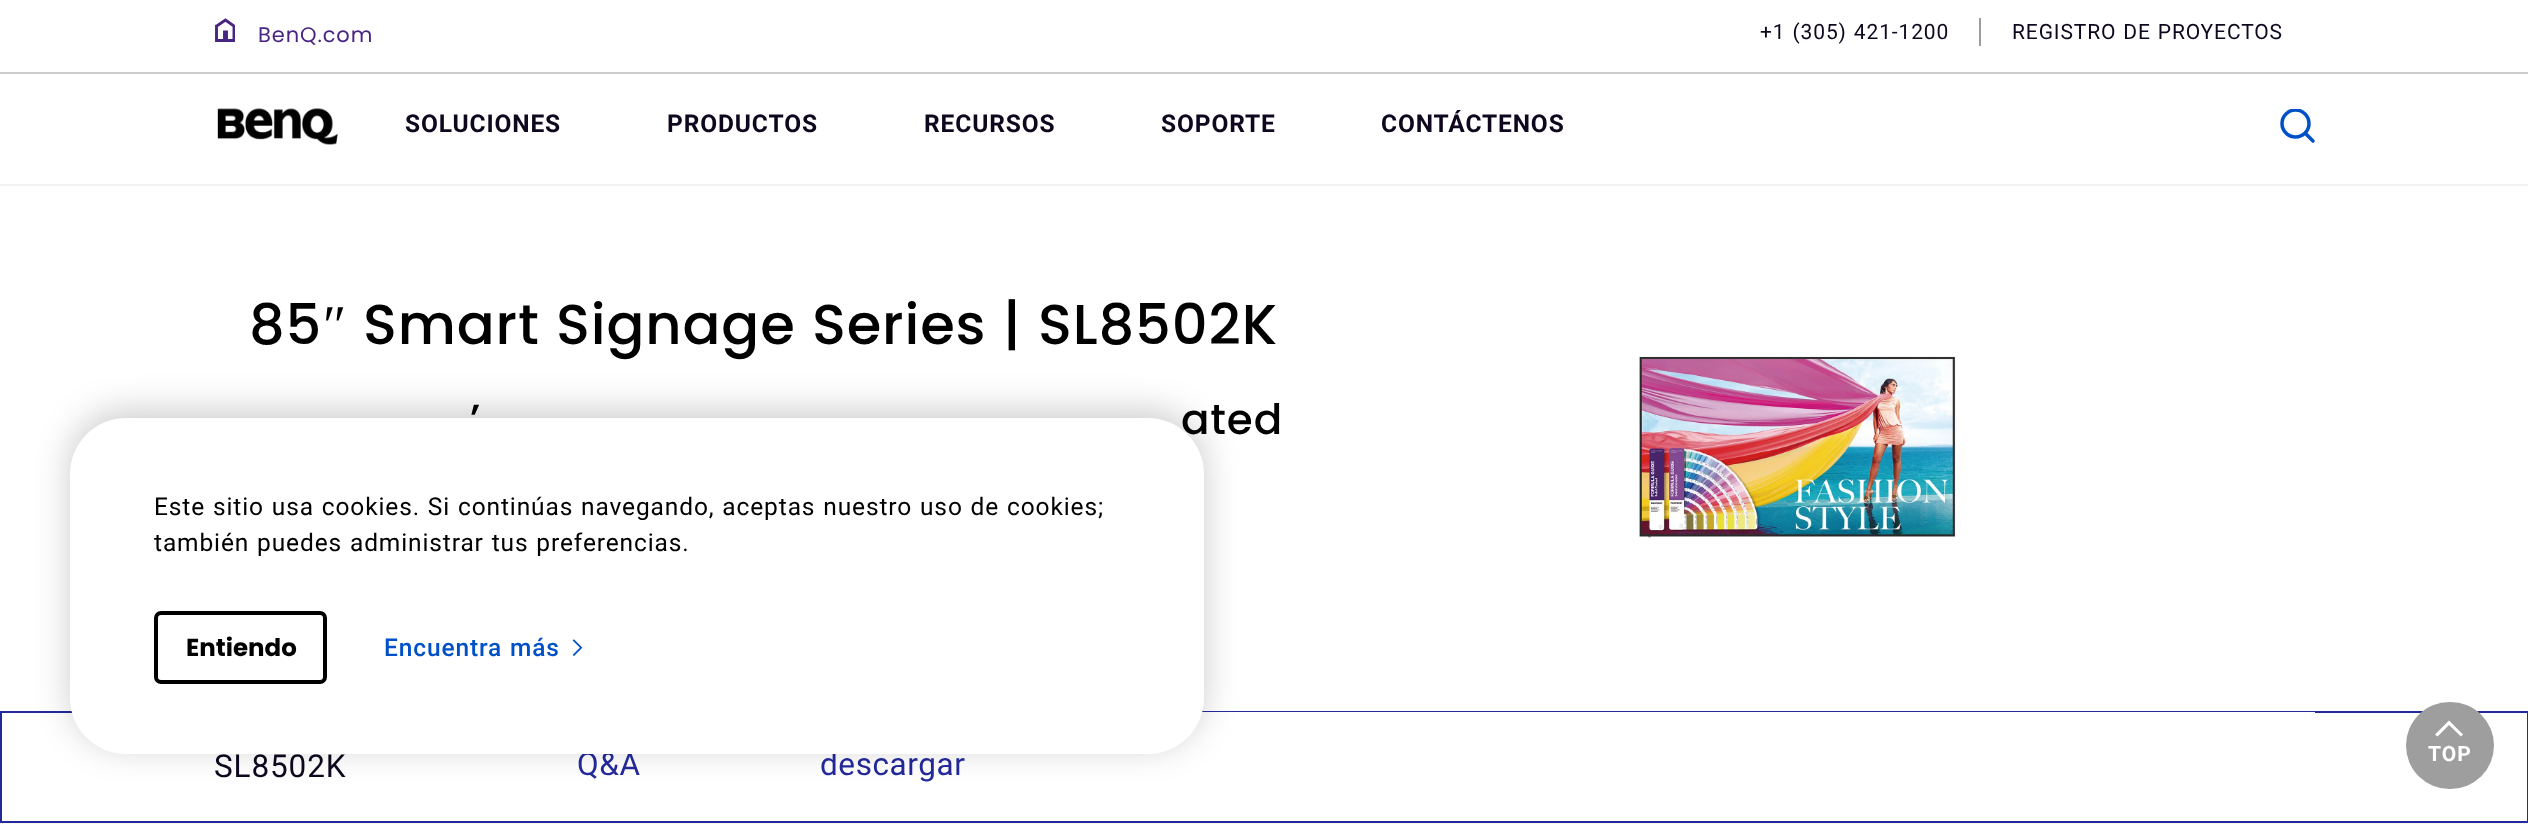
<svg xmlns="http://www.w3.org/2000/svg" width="2528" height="824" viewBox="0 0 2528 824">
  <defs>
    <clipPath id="clip1"><rect x="215" y="18" width="20" height="24"/></clipPath>
    <clipPath id="clip2"><rect x="2280" y="109" width="35" height="35"/></clipPath>
    <filter id="blur1" x="-50%" y="-200%" width="200%" height="500%"><feGaussianBlur stdDeviation="17.5"/></filter>
  </defs>
  <rect width="100%" height="100%" fill="#ffffff"/>
  <rect x="0" y="72" width="2528" height="2" fill="#cccccc"/>
  <g clip-path="url(#clip1)">
    <path d="M217.5 25.5L216.5 26V40.5H224.5V32H226.5V40.5H234V26L225.5 20Z" fill="none" stroke="#492582" stroke-width="2.9"/>
  </g>
  <text x="258" y="42" font-family="Poppins" font-size="21" letter-spacing="0.88" fill="#492582">BenQ.com</text>
  <text x="1760" y="39" word-spacing="0.9" font-family="Roboto" font-size="21" letter-spacing="0.88" fill="#0e071e">+1 (305) 421-1200</text>
  <rect x="1979" y="18" width="2" height="28" fill="#9e9e9e"/>
  <text x="2012" y="39" word-spacing="0.9" font-family="Roboto" font-size="21" letter-spacing="0.88" fill="#0e071e">REGISTRO DE PROYECTOS</text>
  <rect x="0" y="184" width="2528" height="2" fill="#f2f2f2"/>
  <image x="217" y="108" width="121" height="37" href="img1.png"/>
  <text x="405" y="132" font-family="Roboto" font-size="24.5" font-weight="bold" letter-spacing="0.88" fill="#0e071e">SOLUCIONES</text>
  <text x="667" y="132" font-family="Roboto" font-size="24.5" font-weight="bold" letter-spacing="0.88" fill="#0e071e">PRODUCTOS</text>
  <text x="924" y="132" font-family="Roboto" font-size="24.5" font-weight="bold" letter-spacing="0.88" fill="#0e071e">RECURSOS</text>
  <text x="1161" y="132" font-family="Roboto" font-size="24.5" font-weight="bold" letter-spacing="0.88" fill="#0e071e">SOPORTE</text>
  <text x="1381" y="132" font-family="Roboto" font-size="24.5" font-weight="bold" letter-spacing="0.88" fill="#0e071e">CONTÁCTENOS</text>
  <g clip-path="url(#clip2)">
    <circle cx="2295.5" cy="123.5" r="13.5" fill="none" stroke="#0050c7" stroke-width="3.5"/>
  </g>
  <path d="M2306 134L2313 141" fill="none" stroke="#0050c7" stroke-width="3.5" stroke-linecap="round" stroke-linejoin="round"/>
  <text x="249" y="344" font-family="Poppins" font-size="56" font-weight="500" letter-spacing="0.88" fill="#000000">85</text>
  <text x="323" y="344" font-family="Liberation Serif" font-size="56" letter-spacing="0.88" fill="#000000">″</text>
  <text x="363" y="344" word-spacing="0.9" font-family="Poppins" font-size="56" font-weight="500" letter-spacing="0.88" fill="#000000">Smart Signage Series | SL8502K</text>
  <text x="470" y="434" word-spacing="1" font-family="Poppins" font-size="42" font-weight="500" letter-spacing="0.88" fill="#000000">’</text>
  <text x="1181" y="434" word-spacing="1" font-family="Poppins" font-size="42" font-weight="500" letter-spacing="0.88" fill="#000000">ated</text>
  <image x="1639" y="356" width="317" height="182" href="img2.png"/>
  <rect x="1" y="712" width="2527" height="110" fill="none" stroke="#23299b" stroke-width="2"/>
  <rect x="215" y="712" width="2100" height="1" fill="#ffffff"/>
  <text x="214" y="777" font-family="Roboto" font-size="31.5" letter-spacing="0.88" fill="#0e071e">SL8502K</text>
  <text x="577" y="775" font-family="Roboto" font-size="31.5" letter-spacing="0.6" fill="#23299b">Q&amp;A</text>
  <text x="820" y="775" font-family="Roboto" font-size="31.5" letter-spacing="0.6" fill="#23299b">descargar</text>
  <rect x="70" y="411" width="1134" height="336" rx="56" fill="#000000" fill-opacity="0.2" filter="url(#blur1)"/>
  <rect x="70" y="418" width="1134" height="336" rx="56" fill="#ffffff"/>
  <text x="154" y="515" word-spacing="0.9" font-family="Roboto" font-size="24.5" letter-spacing="0.88" fill="#000000">Este sitio usa cookies. Si continúas navegando, aceptas nuestro uso de cookies;</text>
  <text x="154" y="551" word-spacing="0.9" font-family="Roboto" font-size="24.5" letter-spacing="0.88" fill="#000000">también puedes administrar tus preferencias.</text>
  <rect x="156" y="613" width="169" height="69" rx="5" fill="none" stroke="#000000" stroke-width="4"/>
  <text x="186" y="656" font-family="Poppins" font-size="24.5" font-weight="bold" fill="#000000">Entiendo</text>
  <text x="384" y="656" word-spacing="0.9" font-family="Roboto" font-size="24.5" font-weight="500" letter-spacing="0.88" fill="#0050c7">Encuentra más</text>
  <image x="572" y="639" width="11" height="17" href="img3.png"/>
  <rect x="2406" y="702" width="88" height="87" rx="43.5" fill="#9e9e9e"/>
  <path d="M2449 725L2437.5 736.5L2435 734.5L2449 720.5L2463 734.5L2461 736.5Z" fill="#ffffff" fill-rule="evenodd"/>
  <text x="2428" y="761" font-family="Roboto" font-size="21" font-weight="bold" letter-spacing="1" fill="#ffffff">TOP</text>
  <rect x="0" y="823" width="2528" height="1" fill="#f9f5ef"/>
</svg>
